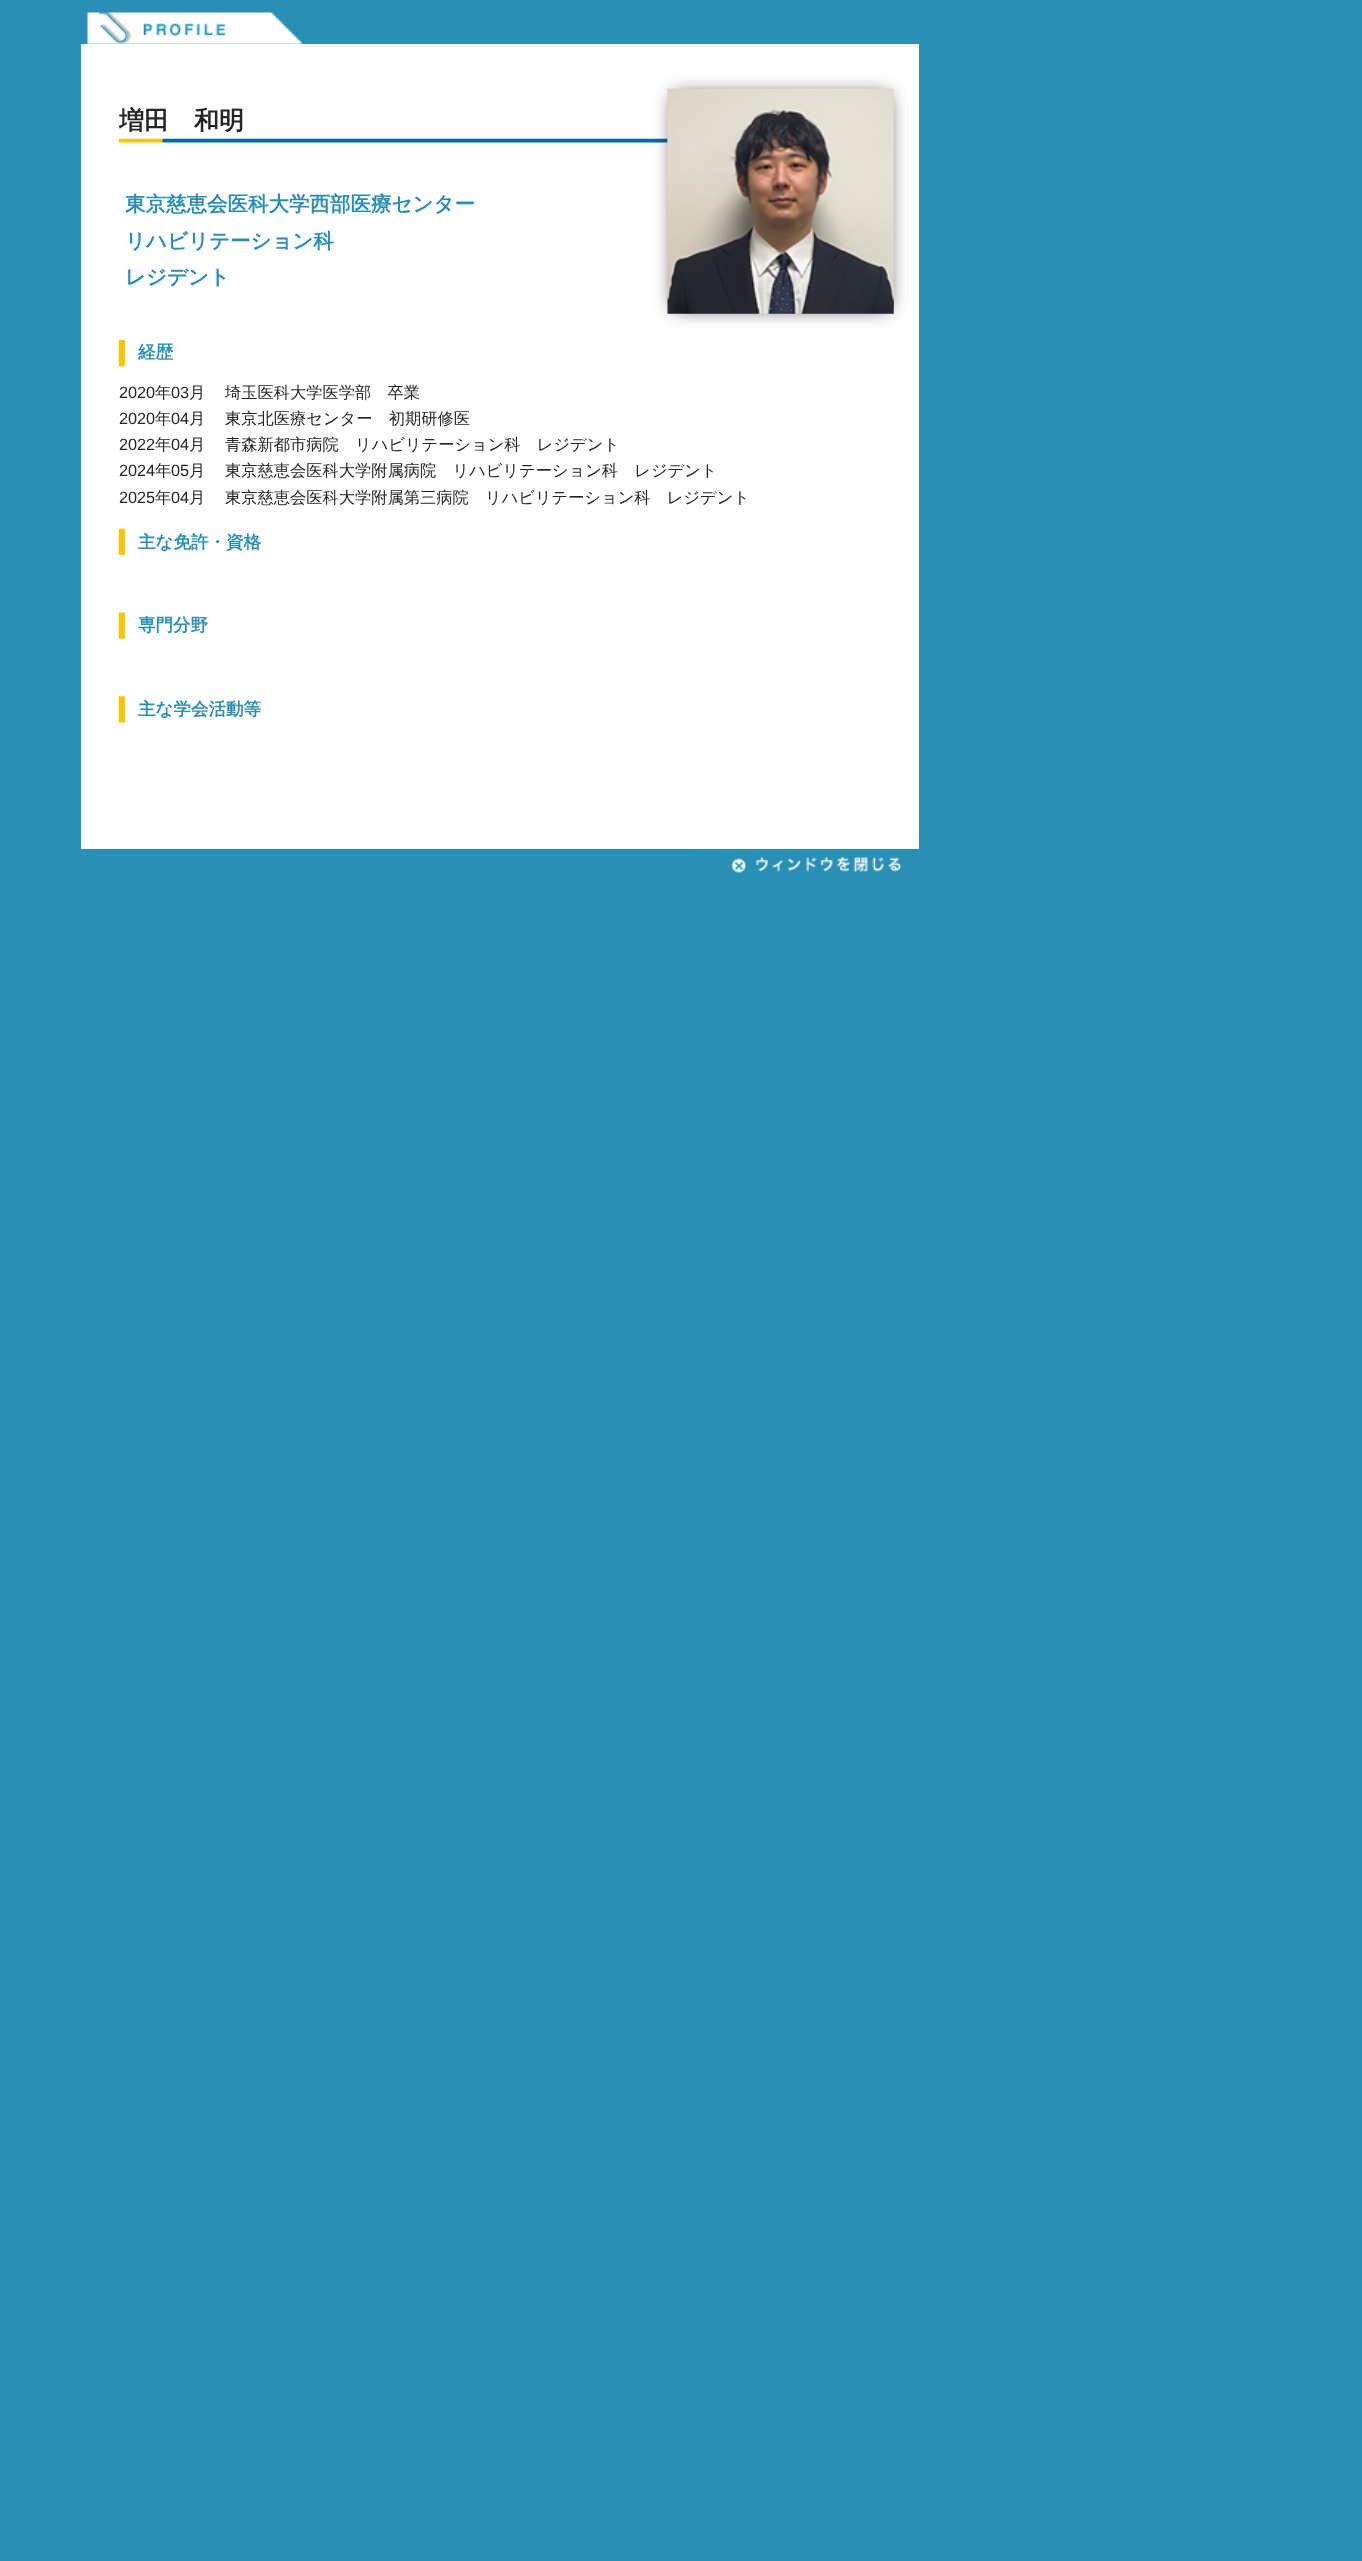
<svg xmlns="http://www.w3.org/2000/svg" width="1362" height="2561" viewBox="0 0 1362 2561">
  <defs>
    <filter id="blur1" x="-50%" y="-200%" width="200%" height="500%"><feGaussianBlur stdDeviation="9.5"/></filter>
  </defs>
  <rect width="100%" height="100%" fill="#298fb5"/>
  <image x="87" y="12" width="216" height="32" href="img1.png"/>
  <rect x="81" y="44" width="838" height="805" fill="#ffffff"/>
  <image x="118" y="138" width="550" height="5" href="img2.png"/>
  <text x="119" y="129" font-family="WenQuanYi Zen Hei" font-size="25" font-weight="bold" fill="#252525">増田　和明</text>
  <rect x="674" y="95" width="214" height="213" fill="#000000" fill-opacity="0.8" filter="url(#blur1)"/>
  <image x="667" y="88" width="227" height="226" href="img3.png"/>
  <text x="125" y="211" font-family="WenQuanYi Zen Hei" font-size="20.5" font-weight="bold" fill="#298fb5">東京慈恵会医科大学西部医療センター</text>
  <text x="125" y="248" font-family="WenQuanYi Zen Hei" font-size="20.5" font-weight="bold" fill="#298fb5">リハビリテーション科</text>
  <text x="125" y="284" font-family="WenQuanYi Zen Hei" font-size="20.5" font-weight="bold" fill="#298fb5">レジデント</text>
  <image x="118" y="340" width="8" height="27" href="img4.png"/>
  <text x="138" y="358" font-family="WenQuanYi Zen Hei" font-size="17.5" font-weight="bold" fill="#298fb5">経歴</text>
  <text x="119" y="398" font-family="Liberation Sans" font-size="16.25" fill="#252525">2020</text>
  <text x="155" y="398" font-family="WenQuanYi Zen Hei" font-size="16.25" font-weight="500" fill="#252525">年</text>
  <text x="171" y="398" font-family="Liberation Sans" font-size="16.25" fill="#252525">03</text>
  <text x="189" y="398" font-family="WenQuanYi Zen Hei" font-size="16.25" font-weight="500" fill="#252525">月</text>
  <text x="225" y="398" font-family="WenQuanYi Zen Hei" font-size="16.25" font-weight="500" fill="#252525">埼玉医科大学医学部　卒業</text>
  <text x="119" y="424" font-family="Liberation Sans" font-size="16.25" fill="#252525">2020</text>
  <text x="155" y="424" font-family="WenQuanYi Zen Hei" font-size="16.25" font-weight="500" fill="#252525">年</text>
  <text x="171" y="424" font-family="Liberation Sans" font-size="16.25" fill="#252525">04</text>
  <text x="189" y="424" font-family="WenQuanYi Zen Hei" font-size="16.25" font-weight="500" fill="#252525">月</text>
  <text x="225" y="424" font-family="WenQuanYi Zen Hei" font-size="16.25" font-weight="500" fill="#252525">東京北医療センター　初期研修医</text>
  <text x="119" y="450" font-family="Liberation Sans" font-size="16.25" fill="#252525">2022</text>
  <text x="155" y="450" font-family="WenQuanYi Zen Hei" font-size="16.25" font-weight="500" fill="#252525">年</text>
  <text x="171" y="450" font-family="Liberation Sans" font-size="16.25" fill="#252525">04</text>
  <text x="189" y="450" font-family="WenQuanYi Zen Hei" font-size="16.25" font-weight="500" fill="#252525">月</text>
  <text x="225" y="450" font-family="WenQuanYi Zen Hei" font-size="16.25" font-weight="500" fill="#252525">青森新都市病院　リハビリテーション科　レジデント</text>
  <text x="119" y="476" font-family="Liberation Sans" font-size="16.25" fill="#252525">2024</text>
  <text x="155" y="476" font-family="WenQuanYi Zen Hei" font-size="16.25" font-weight="500" fill="#252525">年</text>
  <text x="171" y="476" font-family="Liberation Sans" font-size="16.25" fill="#252525">05</text>
  <text x="189" y="476" font-family="WenQuanYi Zen Hei" font-size="16.25" font-weight="500" fill="#252525">月</text>
  <text x="225" y="476" font-family="WenQuanYi Zen Hei" font-size="16.25" font-weight="500" fill="#252525">東京慈恵会医科大学附属病院　リハビリテーション科　レジデント</text>
  <text x="119" y="503" font-family="Liberation Sans" font-size="16.25" fill="#252525">2025</text>
  <text x="155" y="503" font-family="WenQuanYi Zen Hei" font-size="16.25" font-weight="500" fill="#252525">年</text>
  <text x="171" y="503" font-family="Liberation Sans" font-size="16.25" fill="#252525">04</text>
  <text x="189" y="503" font-family="WenQuanYi Zen Hei" font-size="16.25" font-weight="500" fill="#252525">月</text>
  <text x="225" y="503" font-family="WenQuanYi Zen Hei" font-size="16.25" font-weight="500" fill="#252525">東京慈恵会医科大学附属第三病院　リハビリテーション科　レジデント</text>
  <image x="118" y="528" width="8" height="27" href="img5.png"/>
  <text x="138" y="548" font-family="WenQuanYi Zen Hei" font-size="17.5" font-weight="bold" fill="#298fb5">主な免許・資格</text>
  <image x="118" y="612" width="8" height="27" href="img6.png"/>
  <text x="138" y="631" font-family="WenQuanYi Zen Hei" font-size="17.5" font-weight="bold" fill="#298fb5">専門分野</text>
  <image x="118" y="696" width="8" height="27" href="img7.png"/>
  <text x="138" y="715" font-family="WenQuanYi Zen Hei" font-size="17.5" font-weight="bold" fill="#298fb5">主な学会活動等</text>
  <image x="694" y="848" width="219" height="25" href="img8.png"/>
</svg>
